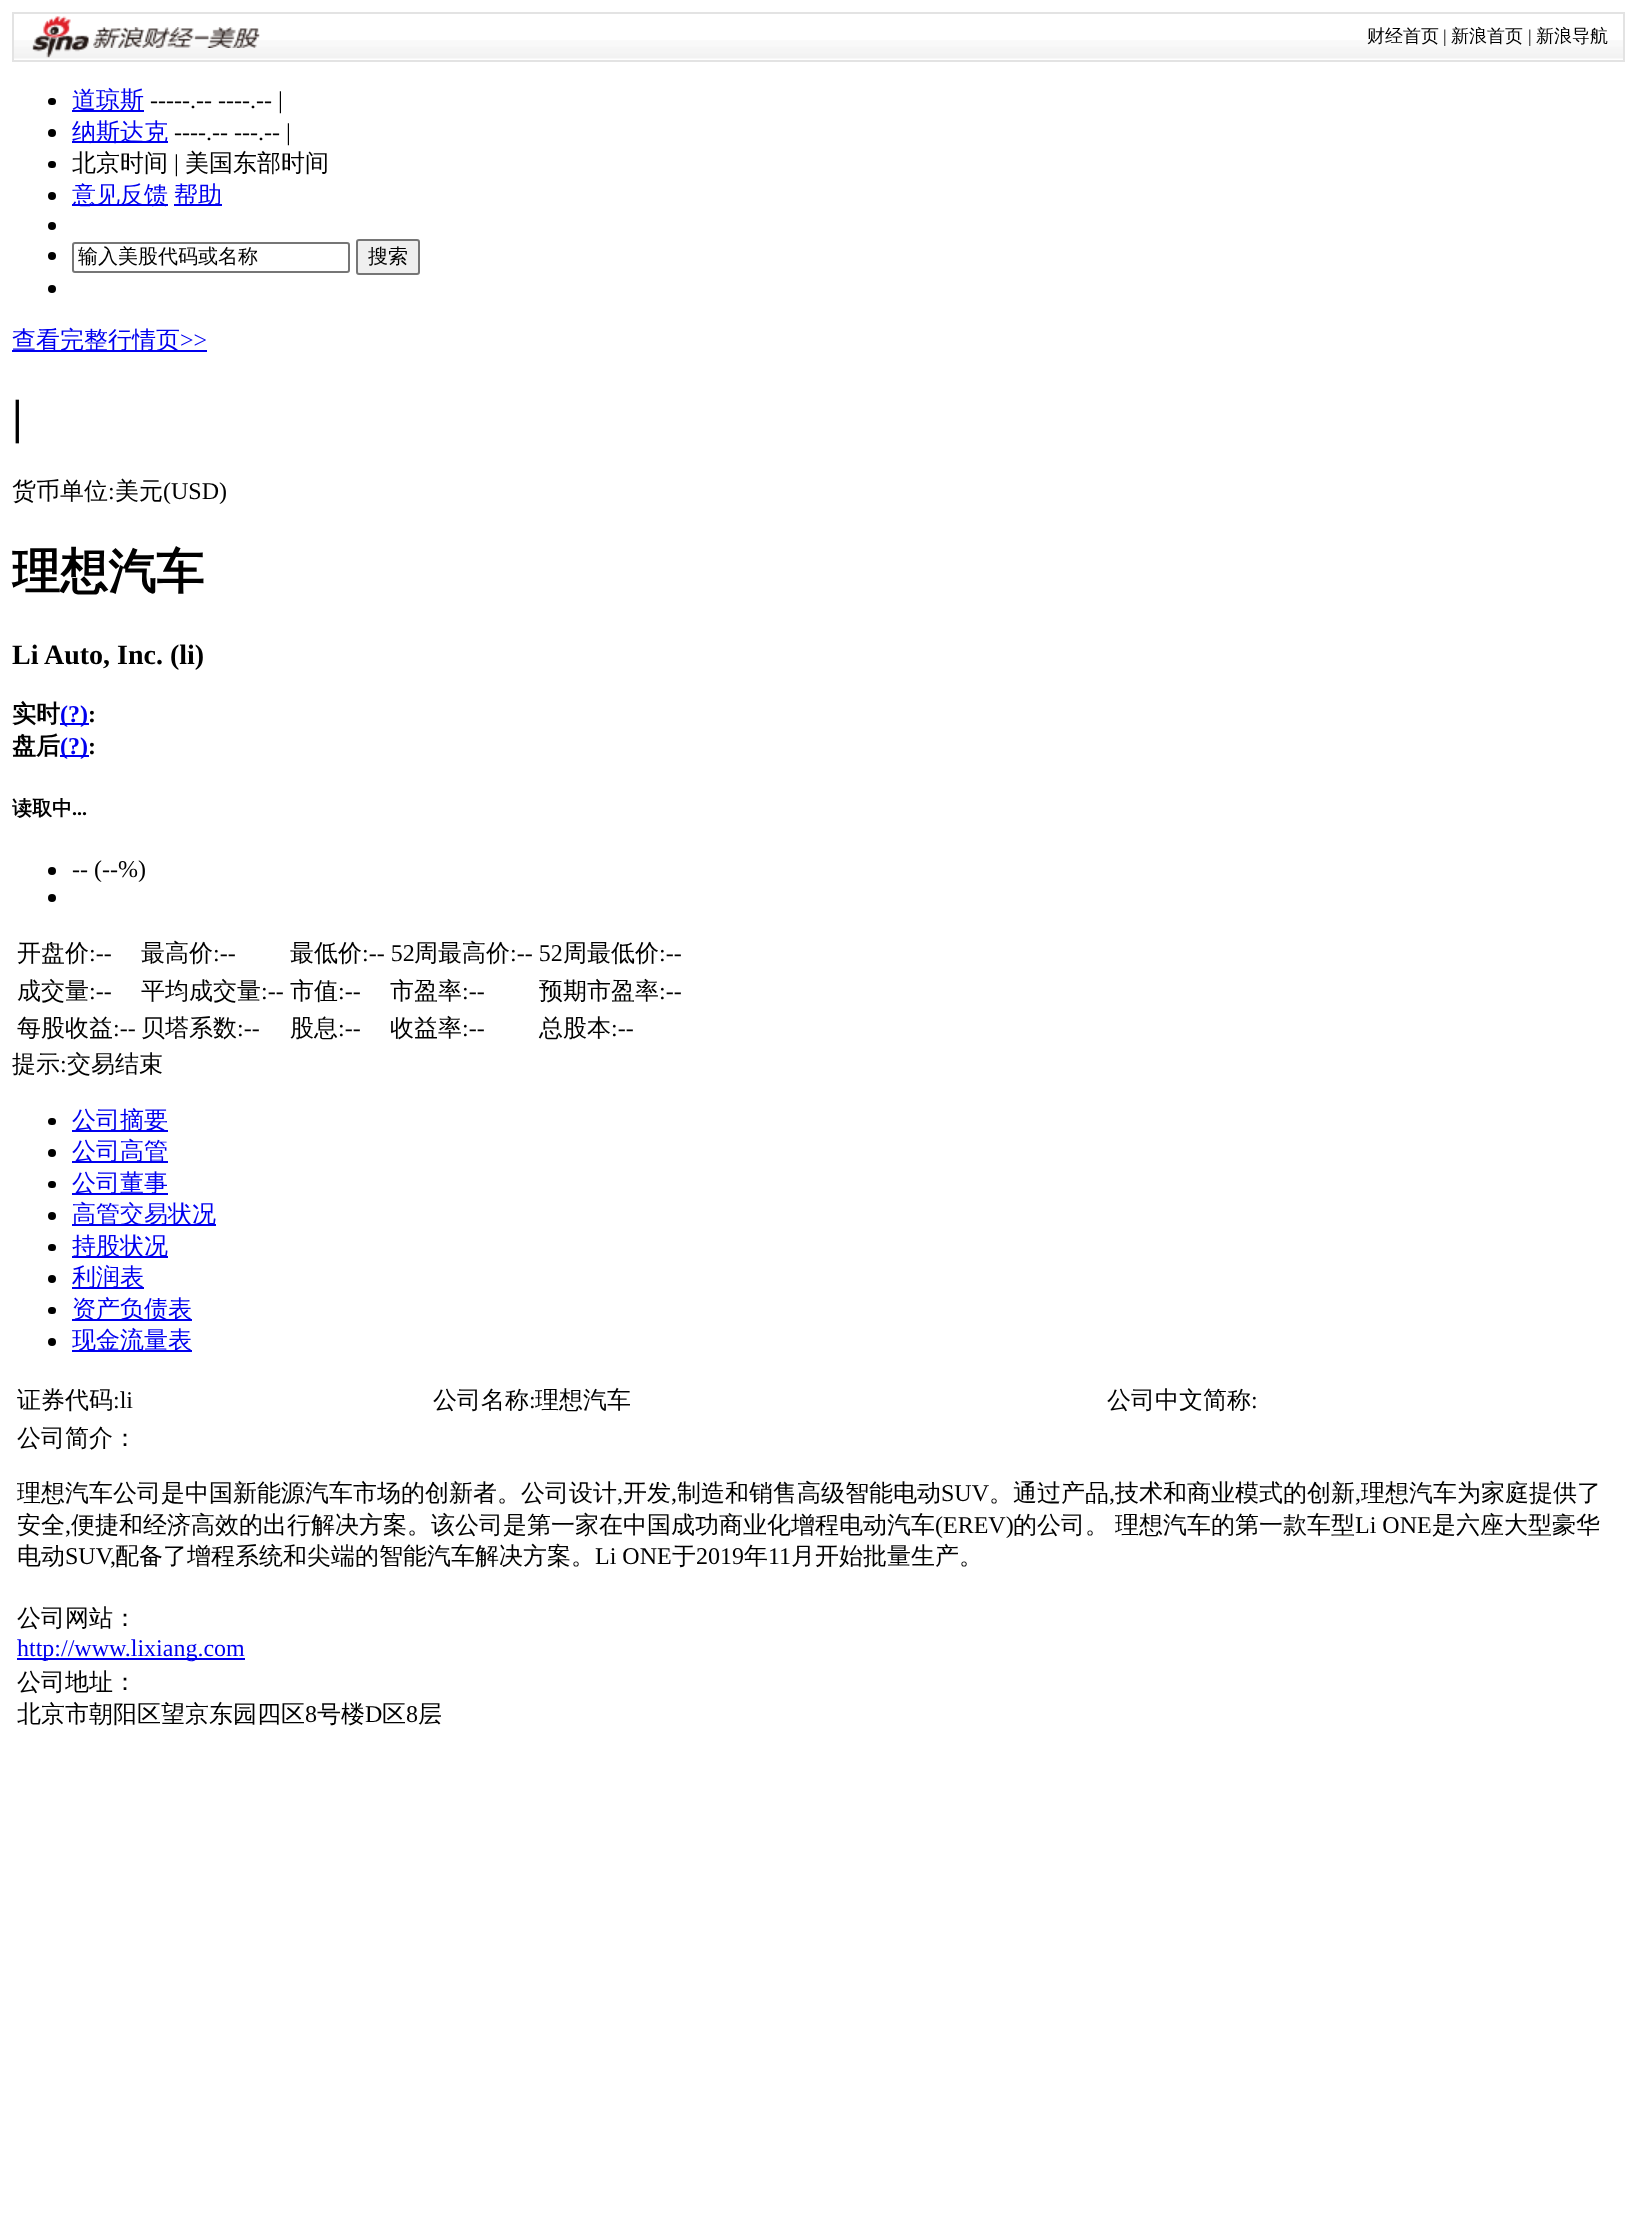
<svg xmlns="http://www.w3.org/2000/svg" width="1636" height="2224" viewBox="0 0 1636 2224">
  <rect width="100%" height="100%" fill="#ffffff"/>
  <image x="14" y="40" width="1609" height="19" href="img1.png"/>
  <rect x="13" y="13" width="1611" height="48" fill="none" stroke="#e3e3e3" stroke-width="2"/>
  <image x="32" y="16" width="57" height="42" href="img2.png"/>
  <image x="93" y="27" width="167" height="21" href="img3.png"/>
  <text x="1367" y="42" font-family="WenQuanYi Zen Hei" font-size="18" font-weight="500" fill="#000000">财经首页</text>
  <text x="1443" y="42" font-family="Liberation Serif" font-size="18" fill="#000000">|</text>
  <text x="1451" y="42" font-family="WenQuanYi Zen Hei" font-size="18" font-weight="500" fill="#000000">新浪首页</text>
  <text x="1528" y="42" font-family="Liberation Serif" font-size="18" fill="#000000">|</text>
  <text x="1536" y="42" font-family="WenQuanYi Zen Hei" font-size="18" font-weight="500" fill="#000000">新浪导航</text>
  <rect x="48" y="98" width="8" height="7" rx="3.5" fill="#000000"/>
  <rect x="72" y="110" width="72" height="2" fill="#0000ee"/>
  <text x="72" y="108" font-family="WenQuanYi Zen Hei" font-size="24" font-weight="500" fill="#0000ee">道琼斯</text>
  <text x="150" y="108" font-family="Liberation Serif" font-size="24" fill="#000000">-----.-- ----.-- |</text>
  <circle cx="52" cy="133" r="4" fill="#000000"/>
  <rect x="72" y="141" width="96" height="2" fill="#0000ee"/>
  <text x="72" y="140" font-family="WenQuanYi Zen Hei" font-size="24" font-weight="500" fill="#0000ee">纳斯达克</text>
  <text x="174" y="140" font-family="Liberation Serif" font-size="24" fill="#000000">----.-- ---.-- |</text>
  <rect x="48" y="161" width="8" height="7" rx="3.5" fill="#000000"/>
  <text x="72" y="171" font-family="WenQuanYi Zen Hei" font-size="24" font-weight="500" fill="#000000">北京时间</text>
  <text x="174" y="171" font-family="Liberation Serif" font-size="24" fill="#000000">|</text>
  <text x="185" y="171" font-family="WenQuanYi Zen Hei" font-size="24" font-weight="500" fill="#000000">美国东部时间</text>
  <circle cx="52" cy="196" r="4" fill="#000000"/>
  <rect x="72" y="204" width="96" height="2" fill="#0000ee"/>
  <text x="72" y="203" font-family="WenQuanYi Zen Hei" font-size="24" font-weight="500" fill="#0000ee">意见反馈</text>
  <rect x="174" y="204" width="48" height="2" fill="#0000ee"/>
  <text x="174" y="203" font-family="WenQuanYi Zen Hei" font-size="24" font-weight="500" fill="#0000ee">帮助</text>
  <circle cx="52" cy="226" r="4" fill="#000000"/>
  <circle cx="52" cy="256" r="4" fill="#000000"/>
  <rect x="73" y="243" width="276" height="29" rx="2" fill="none" stroke="#767676" stroke-width="2"/>
  <text x="78" y="263" font-family="WenQuanYi Zen Hei" font-size="20" font-weight="500" fill="#000000">输入美股代码或名称</text>
  <rect x="357" y="240" width="62" height="34" rx="2" fill="#efefef" stroke="#767676" stroke-width="2"/>
  <text x="368" y="263" font-family="WenQuanYi Zen Hei" font-size="20" font-weight="500" fill="#000000">搜索</text>
  <circle cx="52" cy="289" r="4" fill="#000000"/>
  <rect x="12" y="350" width="195" height="2" fill="#0000ee"/>
  <text x="12" y="348" font-family="WenQuanYi Zen Hei" font-size="24" font-weight="500" fill="#0000ee">查看完整行情页</text>
  <text x="180" y="348" font-family="Liberation Serif" font-size="24" fill="#0000ee">&gt;&gt;</text>
  <text x="12" y="433" font-family="Liberation Serif" font-size="48" font-weight="bold" fill="#000000">|</text>
  <text x="12" y="499" font-family="WenQuanYi Zen Hei" font-size="24" font-weight="500" fill="#000000">货币单位</text>
  <text x="108" y="499" font-family="Liberation Serif" font-size="24" fill="#000000">:</text>
  <text x="115" y="499" font-family="WenQuanYi Zen Hei" font-size="24" font-weight="500" fill="#000000">美元</text>
  <text x="163" y="499" font-family="Liberation Serif" font-size="24" fill="#000000">(USD)</text>
  <text x="12" y="588" font-family="WenQuanYi Zen Hei" font-size="48" font-weight="bold" fill="#000000">理想汽车</text>
  <text x="12" y="664" font-family="Liberation Serif" font-size="28" font-weight="bold" fill="#000000">Li Auto, Inc. (li)</text>
  <text x="12" y="722" font-family="WenQuanYi Zen Hei" font-size="24" font-weight="bold" fill="#000000">实时</text>
  <rect x="60" y="723" width="29" height="2" fill="#0000ee"/>
  <text x="60" y="722" font-family="Liberation Serif" font-size="24" font-weight="bold" fill="#0000ee">(?)</text>
  <text x="88" y="722" font-family="Liberation Serif" font-size="24" font-weight="bold" fill="#000000">:</text>
  <text x="12" y="754" font-family="WenQuanYi Zen Hei" font-size="24" font-weight="bold" fill="#000000">盘后</text>
  <rect x="60" y="755" width="29" height="2" fill="#0000ee"/>
  <text x="60" y="754" font-family="Liberation Serif" font-size="24" font-weight="bold" fill="#0000ee">(?)</text>
  <text x="88" y="754" font-family="Liberation Serif" font-size="24" font-weight="bold" fill="#000000">:</text>
  <text x="12" y="815" font-family="WenQuanYi Zen Hei" font-size="20" font-weight="bold" fill="#000000">读取中</text>
  <text x="72" y="815" font-family="Liberation Serif" font-size="20" font-weight="bold" fill="#000000">...</text>
  <circle cx="52" cy="871" r="4" fill="#000000"/>
  <text x="72" y="877" font-family="Liberation Serif" font-size="24" fill="#000000">-- (--%)</text>
  <circle cx="52" cy="898" r="4" fill="#000000"/>
  <text x="17" y="961" font-family="WenQuanYi Zen Hei" font-size="24" font-weight="500" fill="#000000">开盘价</text>
  <text x="89" y="961" font-family="Liberation Serif" font-size="24" fill="#000000">:--</text>
  <text x="141" y="961" font-family="WenQuanYi Zen Hei" font-size="24" font-weight="500" fill="#000000">最高价</text>
  <text x="213" y="961" font-family="Liberation Serif" font-size="24" fill="#000000">:--</text>
  <text x="290" y="961" font-family="WenQuanYi Zen Hei" font-size="24" font-weight="500" fill="#000000">最低价</text>
  <text x="362" y="961" font-family="Liberation Serif" font-size="24" fill="#000000">:-- 52</text>
  <text x="414" y="961" font-family="WenQuanYi Zen Hei" font-size="24" font-weight="500" fill="#000000">周最高价</text>
  <text x="510" y="961" font-family="Liberation Serif" font-size="24" fill="#000000">:-- 52</text>
  <text x="563" y="961" font-family="WenQuanYi Zen Hei" font-size="24" font-weight="500" fill="#000000">周最低价</text>
  <text x="659" y="961" font-family="Liberation Serif" font-size="24" fill="#000000">:--</text>
  <text x="17" y="999" font-family="WenQuanYi Zen Hei" font-size="24" font-weight="500" fill="#000000">成交量</text>
  <text x="89" y="999" font-family="Liberation Serif" font-size="24" fill="#000000">:--</text>
  <text x="141" y="999" font-family="WenQuanYi Zen Hei" font-size="24" font-weight="500" fill="#000000">平均成交量</text>
  <text x="261" y="999" font-family="Liberation Serif" font-size="24" fill="#000000">:--</text>
  <text x="290" y="999" font-family="WenQuanYi Zen Hei" font-size="24" font-weight="500" fill="#000000">市值</text>
  <text x="338" y="999" font-family="Liberation Serif" font-size="24" fill="#000000">:--</text>
  <text x="390" y="999" font-family="WenQuanYi Zen Hei" font-size="24" font-weight="500" fill="#000000">市盈率</text>
  <text x="462" y="999" font-family="Liberation Serif" font-size="24" fill="#000000">:--</text>
  <text x="539" y="999" font-family="WenQuanYi Zen Hei" font-size="24" font-weight="500" fill="#000000">预期市盈率</text>
  <text x="659" y="999" font-family="Liberation Serif" font-size="24" fill="#000000">:--</text>
  <text x="17" y="1036" font-family="WenQuanYi Zen Hei" font-size="24" font-weight="500" fill="#000000">每股收益</text>
  <text x="113" y="1036" font-family="Liberation Serif" font-size="24" fill="#000000">:--</text>
  <text x="141" y="1036" font-family="WenQuanYi Zen Hei" font-size="24" font-weight="500" fill="#000000">贝塔系数</text>
  <text x="237" y="1036" font-family="Liberation Serif" font-size="24" fill="#000000">:--</text>
  <text x="290" y="1036" font-family="WenQuanYi Zen Hei" font-size="24" font-weight="500" fill="#000000">股息</text>
  <text x="338" y="1036" font-family="Liberation Serif" font-size="24" fill="#000000">:--</text>
  <text x="390" y="1036" font-family="WenQuanYi Zen Hei" font-size="24" font-weight="500" fill="#000000">收益率</text>
  <text x="462" y="1036" font-family="Liberation Serif" font-size="24" fill="#000000">:--</text>
  <text x="539" y="1036" font-family="WenQuanYi Zen Hei" font-size="24" font-weight="500" fill="#000000">总股本</text>
  <text x="611" y="1036" font-family="Liberation Serif" font-size="24" fill="#000000">:--</text>
  <text x="12" y="1072" font-family="WenQuanYi Zen Hei" font-size="24" font-weight="500" fill="#000000">提示</text>
  <text x="60" y="1072" font-family="Liberation Serif" font-size="24" fill="#000000">:</text>
  <text x="67" y="1072" font-family="WenQuanYi Zen Hei" font-size="24" font-weight="500" fill="#000000">交易结束</text>
  <rect x="48" y="1118" width="8" height="7" rx="3.5" fill="#000000"/>
  <rect x="72" y="1130" width="96" height="2" fill="#0000ee"/>
  <text x="72" y="1128" font-family="WenQuanYi Zen Hei" font-size="24" font-weight="500" fill="#0000ee">公司摘要</text>
  <circle cx="52" cy="1153" r="4" fill="#000000"/>
  <rect x="72" y="1161" width="96" height="2" fill="#0000ee"/>
  <text x="72" y="1159" font-family="WenQuanYi Zen Hei" font-size="24" font-weight="500" fill="#0000ee">公司高管</text>
  <rect x="48" y="1181" width="8" height="7" rx="3.5" fill="#000000"/>
  <rect x="72" y="1193" width="96" height="2" fill="#0000ee"/>
  <text x="72" y="1191" font-family="WenQuanYi Zen Hei" font-size="24" font-weight="500" fill="#0000ee">公司董事</text>
  <circle cx="52" cy="1216" r="4" fill="#000000"/>
  <rect x="72" y="1224" width="144" height="2" fill="#0000ee"/>
  <text x="72" y="1222" font-family="WenQuanYi Zen Hei" font-size="24" font-weight="500" fill="#0000ee">高管交易状况</text>
  <rect x="48" y="1244" width="8" height="7" rx="3.5" fill="#000000"/>
  <rect x="72" y="1256" width="96" height="2" fill="#0000ee"/>
  <text x="72" y="1254" font-family="WenQuanYi Zen Hei" font-size="24" font-weight="500" fill="#0000ee">持股状况</text>
  <circle cx="52" cy="1279" r="4" fill="#000000"/>
  <rect x="72" y="1287" width="72" height="2" fill="#0000ee"/>
  <text x="72" y="1285" font-family="WenQuanYi Zen Hei" font-size="24" font-weight="500" fill="#0000ee">利润表</text>
  <rect x="48" y="1307" width="8" height="7" rx="3.5" fill="#000000"/>
  <rect x="72" y="1319" width="120" height="2" fill="#0000ee"/>
  <text x="72" y="1317" font-family="WenQuanYi Zen Hei" font-size="24" font-weight="500" fill="#0000ee">资产负债表</text>
  <circle cx="52" cy="1342" r="4" fill="#000000"/>
  <rect x="72" y="1350" width="120" height="2" fill="#0000ee"/>
  <text x="72" y="1348" font-family="WenQuanYi Zen Hei" font-size="24" font-weight="500" fill="#0000ee">现金流量表</text>
  <text x="17" y="1408" font-family="WenQuanYi Zen Hei" font-size="24" font-weight="500" fill="#000000">证券代码</text>
  <text x="113" y="1408" font-family="Liberation Serif" font-size="24" fill="#000000">:li</text>
  <text x="433" y="1408" font-family="WenQuanYi Zen Hei" font-size="24" font-weight="500" fill="#000000">公司名称</text>
  <text x="529" y="1408" font-family="Liberation Serif" font-size="24" fill="#000000">:</text>
  <text x="535" y="1408" font-family="WenQuanYi Zen Hei" font-size="24" font-weight="500" fill="#000000">理想汽车</text>
  <text x="1107" y="1408" font-family="WenQuanYi Zen Hei" font-size="24" font-weight="500" fill="#000000">公司中文简称</text>
  <text x="1251" y="1408" font-family="Liberation Serif" font-size="24" fill="#000000">:</text>
  <text x="17" y="1446" font-family="WenQuanYi Zen Hei" font-size="24" font-weight="500" fill="#000000">公司简介：</text>
  <text x="17" y="1501" font-family="WenQuanYi Zen Hei" font-size="24" font-weight="500" fill="#000000">理想汽车公司是中国新能源汽车市场的创新者。公司设计</text>
  <text x="617" y="1501" font-family="Liberation Serif" font-size="24" fill="#000000">,</text>
  <text x="623" y="1501" font-family="WenQuanYi Zen Hei" font-size="24" font-weight="500" fill="#000000">开发</text>
  <text x="671" y="1501" font-family="Liberation Serif" font-size="24" fill="#000000">,</text>
  <text x="677" y="1501" font-family="WenQuanYi Zen Hei" font-size="24" font-weight="500" fill="#000000">制造和销售高级智能电动</text>
  <text x="941" y="1501" font-family="Liberation Serif" font-size="24" fill="#000000">SUV</text>
  <text x="989" y="1501" font-family="WenQuanYi Zen Hei" font-size="24" font-weight="500" fill="#000000">。通过产品</text>
  <text x="1109" y="1501" font-family="Liberation Serif" font-size="24" fill="#000000">,</text>
  <text x="1115" y="1501" font-family="WenQuanYi Zen Hei" font-size="24" font-weight="500" fill="#000000">技术和商业模式的创新</text>
  <text x="1355" y="1501" font-family="Liberation Serif" font-size="24" fill="#000000">,</text>
  <text x="1361" y="1501" font-family="WenQuanYi Zen Hei" font-size="24" font-weight="500" fill="#000000">理想汽车为家庭提供了</text>
  <text x="17" y="1533" font-family="WenQuanYi Zen Hei" font-size="24" font-weight="500" fill="#000000">安全</text>
  <text x="65" y="1533" font-family="Liberation Serif" font-size="24" fill="#000000">,</text>
  <text x="71" y="1533" font-family="WenQuanYi Zen Hei" font-size="24" font-weight="500" fill="#000000">便捷和经济高效的出行解决方案。该公司是第一家在中国成功商业化增程电动汽车</text>
  <text x="935" y="1533" font-family="Liberation Serif" font-size="24" fill="#000000">(EREV)</text>
  <text x="1013" y="1533" font-family="WenQuanYi Zen Hei" font-size="24" font-weight="500" fill="#000000">的公司。</text>
  <text x="1115" y="1533" font-family="WenQuanYi Zen Hei" font-size="24" font-weight="500" fill="#000000">理想汽车的第一款车型</text>
  <text x="1355" y="1533" font-family="Liberation Serif" font-size="24" fill="#000000">Li ONE</text>
  <text x="1432" y="1533" font-family="WenQuanYi Zen Hei" font-size="24" font-weight="500" fill="#000000">是六座大型豪华</text>
  <text x="17" y="1564" font-family="WenQuanYi Zen Hei" font-size="24" font-weight="500" fill="#000000">电动</text>
  <text x="65" y="1564" font-family="Liberation Serif" font-size="24" fill="#000000">SUV,</text>
  <text x="115" y="1564" font-family="WenQuanYi Zen Hei" font-size="24" font-weight="500" fill="#000000">配备了增程系统和尖端的智能汽车解决方案。</text>
  <text x="595" y="1564" font-family="Liberation Serif" font-size="24" fill="#000000">Li ONE</text>
  <text x="672" y="1564" font-family="WenQuanYi Zen Hei" font-size="24" font-weight="500" fill="#000000">于</text>
  <text x="696" y="1564" font-family="Liberation Serif" font-size="24" fill="#000000">2019</text>
  <text x="744" y="1564" font-family="WenQuanYi Zen Hei" font-size="24" font-weight="500" fill="#000000">年</text>
  <text x="768" y="1564" font-family="Liberation Serif" font-size="24" fill="#000000">11</text>
  <text x="791" y="1564" font-family="WenQuanYi Zen Hei" font-size="24" font-weight="500" fill="#000000">月开始批量生产。</text>
  <text x="17" y="1626" font-family="WenQuanYi Zen Hei" font-size="24" font-weight="500" fill="#000000">公司网站：</text>
  <rect x="17" y="1658" width="228" height="2" fill="#0000ee"/>
  <text x="17" y="1656" font-family="Liberation Serif" font-size="24" fill="#0000ee">http://www.lixiang.com</text>
  <text x="17" y="1690" font-family="WenQuanYi Zen Hei" font-size="24" font-weight="500" fill="#000000">公司地址：</text>
  <text x="17" y="1722" font-family="WenQuanYi Zen Hei" font-size="24" font-weight="500" fill="#000000">北京市朝阳区望京东园四区</text>
  <text x="305" y="1722" font-family="Liberation Serif" font-size="24" fill="#000000">8</text>
  <text x="317" y="1722" font-family="WenQuanYi Zen Hei" font-size="24" font-weight="500" fill="#000000">号楼</text>
  <text x="365" y="1722" font-family="Liberation Serif" font-size="24" fill="#000000">D</text>
  <text x="382" y="1722" font-family="WenQuanYi Zen Hei" font-size="24" font-weight="500" fill="#000000">区</text>
  <text x="406" y="1722" font-family="Liberation Serif" font-size="24" fill="#000000">8</text>
  <text x="418" y="1722" font-family="WenQuanYi Zen Hei" font-size="24" font-weight="500" fill="#000000">层</text>
</svg>
